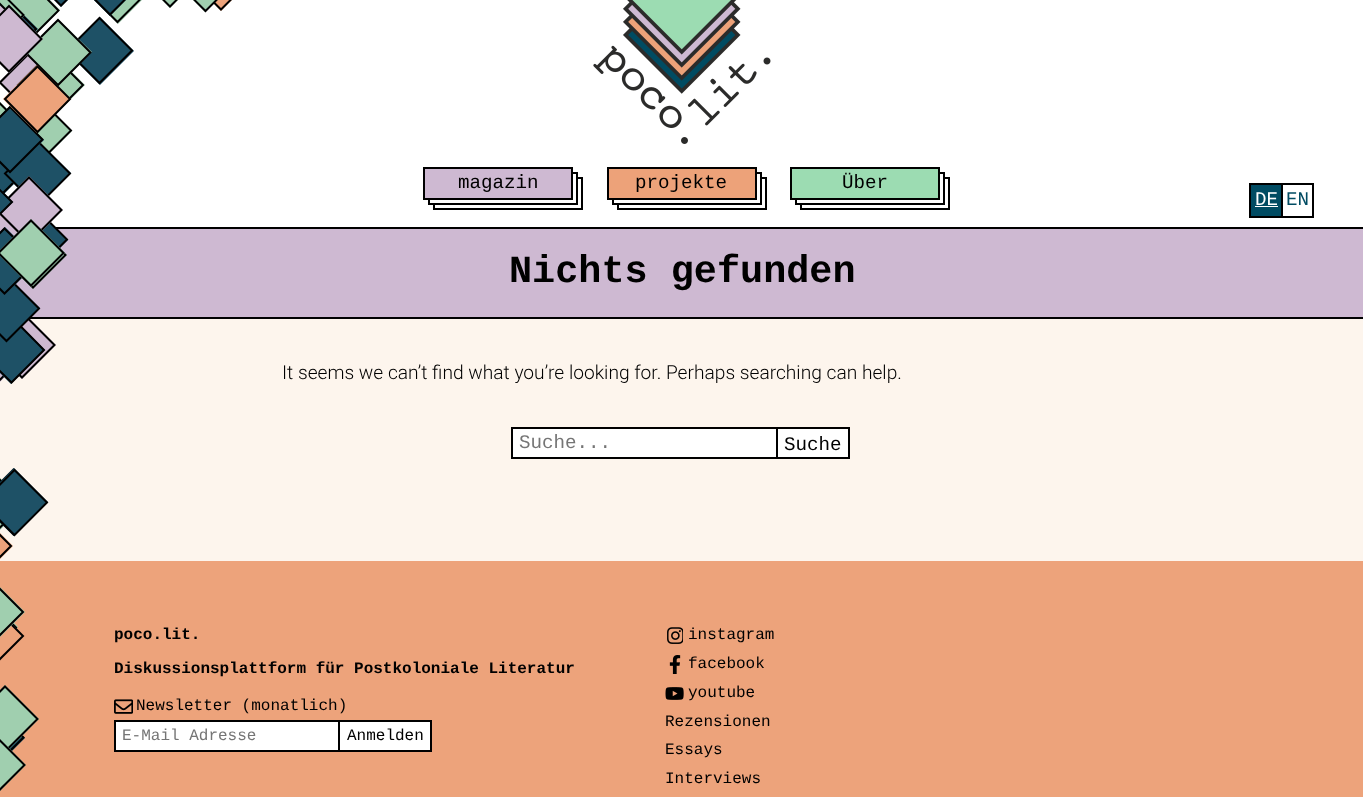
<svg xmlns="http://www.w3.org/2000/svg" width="1363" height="797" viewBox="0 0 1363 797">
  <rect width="100%" height="100%" fill="#ffffff"/>
  <path d="M26-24L60 10L26 44L-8 10Z" fill="#a0cfaf"/>
  <path d="M26-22.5L58.5 10.5L26 43L-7 10.5Z" fill="none" stroke="#000000" stroke-width="2"/>
  <path d="M100 17L134 51L100 85L66 51Z" fill="#1e5166"/>
  <path d="M99.5 18L132 50.5L99.5 83L67 50.5Z" fill="none" stroke="#000000" stroke-width="2"/>
  <path d="M38 97L72 131L38 165L4 131Z" fill="#a0cfaf"/>
  <path d="M38.5 98L71 130.5L38.5 163L6 130.5Z" fill="none" stroke="#000000" stroke-width="2"/>
  <path d="M33 48L67 82L33 116L-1 82Z" fill="#ceb9d1"/>
  <path d="M32.5 50L65.5 82.5L32.5 115L0 82.5Z" fill="none" stroke="#000000" stroke-width="2"/>
  <path d="M51 51L85 85L51 119L17 85Z" fill="#a0cfaf"/>
  <path d="M50.5 52.5L83 85L50.5 117.5L18 85Z" fill="none" stroke="#000000" stroke-width="2"/>
  <path d="M4-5L38 29L4 63L-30 29Z" fill="#1e5166"/>
  <path d="M3.5-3.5L36 29L3.5 61.5L-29 29Z" fill="none" stroke="#000000" stroke-width="2"/>
  <path d="M-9-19L25 15L-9 49L-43 15Z" fill="#a0cfaf"/>
  <path d="M-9-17.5L23.5 15L-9 47.5L-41.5 15Z" fill="none" stroke="#000000" stroke-width="2"/>
  <path d="M61-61L95-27L61 7L27-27Z" fill="#1e5166"/>
  <path d="M61-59.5L93.5-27L61 5.5L28.5-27Z" fill="none" stroke="#000000" stroke-width="2"/>
  <path d="M118-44L152-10L118 24L84-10Z" fill="#a0cfaf"/>
  <path d="M117.5-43L150-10.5L117.5 22L85-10.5Z" fill="none" stroke="#000000" stroke-width="2"/>
  <path d="M-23-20L11 14L-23 48L-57 14Z" fill="#ceb9d1"/>
  <path d="M-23-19L9.5 13.5L-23 46.5L-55.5 13.5Z" fill="none" stroke="#000000" stroke-width="2"/>
  <path d="M110-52L144-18L110 16L76-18Z" fill="#1e5166"/>
  <path d="M110-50.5L142.5-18L110 14.5L77.5-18Z" fill="none" stroke="#000000" stroke-width="2"/>
  <path d="M170-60L204-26L170 8L136-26Z" fill="#a0cfaf"/>
  <path d="M170-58.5L202.5-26L170 6.5L137.5-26Z" fill="none" stroke="#000000" stroke-width="2"/>
  <path d="M221-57L255-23L221 11L187-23Z" fill="#eda37b"/>
  <path d="M221-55.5L253.5-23L221 9.5L188.5-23Z" fill="none" stroke="#000000" stroke-width="2"/>
  <path d="M205-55L239-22L205 12L171-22Z" fill="#a0cfaf"/>
  <path d="M205.5-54L238-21.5L205.5 11L173-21.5Z" fill="none" stroke="#000000" stroke-width="2"/>
  <path d="M58 19L92 52L58 86L24 52Z" fill="#a0cfaf"/>
  <path d="M58 20L90.5 52.5L58 85L25.5 52.5Z" fill="none" stroke="#000000" stroke-width="2"/>
  <path d="M9 5L43 39L9 73L-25 39Z" fill="#ceb9d1"/>
  <path d="M9 6L41.5 39L9 71.5L-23.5 39Z" fill="none" stroke="#000000" stroke-width="2"/>
  <path d="M-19 83L15 117L-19 151L-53 117Z" fill="#a0cfaf"/>
  <path d="M-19 84.5L13.5 117L-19 149.5L-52 117Z" fill="none" stroke="#000000" stroke-width="2"/>
  <path d="M-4 134L30 168L-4 202L-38 168Z" fill="#1e5166"/>
  <path d="M-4 135L28.5 167.5L-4 200L-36.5 167.5Z" fill="none" stroke="#000000" stroke-width="2"/>
  <rect x="16" y="229" width="1347" height="88" fill="#ceb9d2"/>
  <rect x="56" y="227" width="1307" height="2" fill="#000000"/>
  <path d="M34 206L68 240L34 274L0 240Z" fill="#1e5166"/>
  <path d="M34.5 207L67 239.5L34.5 272L2 239.5Z" fill="none" stroke="#000000" stroke-width="2"/>
  <path d="M-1 198L33 231L-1 265L-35 231Z" fill="#ceb9d1"/>
  <path d="M37 140L71 173L37 207L3 173Z" fill="#1e5166"/>
  <path d="M37.5 141L70 173.5L37.5 206L5 173.5Z" fill="none" stroke="#000000" stroke-width="2"/>
  <path d="M10 106L44 140L10 173L-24 140Z" fill="#1e5166"/>
  <path d="M10 107L42.5 139.5L10 172L-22.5 139.5Z" fill="none" stroke="#000000" stroke-width="2"/>
  <path d="M37 65L71 99L37 133L3 99Z" fill="#eda37b"/>
  <path d="M37.5 66.5L70 99L37.5 132L5 99Z" fill="none" stroke="#000000" stroke-width="2"/>
  <path d="M33 221L67 255L33 289L-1 255Z" fill="#a0cfaf"/>
  <path d="M33 222.5L65.5 255L33 287.5L.5 255Z" fill="none" stroke="#000000" stroke-width="2"/>
  <path d="M29 176L63 210L29 244L-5 210Z" fill="#ceb9d1"/>
  <path d="M29 177.5L61.5 210L29 242.5L-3.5 210Z" fill="none" stroke="#000000" stroke-width="2"/>
  <path d="M-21 168L13 202L-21 236L-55 202Z" fill="#1e5166"/>
  <path d="M-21 169.5L12 202L-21 234.5L-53.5 202Z" fill="none" stroke="#000000" stroke-width="2"/>
  <rect x="0" y="319" width="1363" height="242" fill="#fdf5ed"/>
  <rect x="30" y="317" width="1333" height="2" fill="#000000"/>
  <path d="M22 311L56 345L22 379L-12 345Z" fill="#ceb9d1"/>
  <path d="M22 312.5L54.5 345L22 377.5L-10.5 345Z" fill="none" stroke="#000000" stroke-width="2"/>
  <path d="M-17 331L17 365L-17 399L-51 365Z" fill="#ceb9d1"/>
  <path d="M-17.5 332L15 364.5L-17.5 397.5L-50 364.5Z" fill="none" stroke="#000000" stroke-width="2"/>
  <path d="M11 316L45 350L11 384L-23 350Z" fill="#1e5166"/>
  <path d="M11.5 317L44 350L11.5 382.5L-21.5 350Z" fill="none" stroke="#000000" stroke-width="2"/>
  <path d="M6 275L40 308L6 342L-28 308Z" fill="#1e5166"/>
  <path d="M6.5 276L39 308.5L6.5 341L-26 308.5Z" fill="none" stroke="#000000" stroke-width="2"/>
  <path d="M5 227L39 261L5 295L-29 261Z" fill="#1e5166"/>
  <path d="M4.5 228.5L37.5 261L4.5 293.5L-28 261Z" fill="none" stroke="#000000" stroke-width="2"/>
  <path d="M31 219L65 253L31 287L-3 253Z" fill="#a0cfaf"/>
  <path d="M31 220.5L63.5 253L31 285.5L-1.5 253Z" fill="none" stroke="#000000" stroke-width="2"/>
  <path d="M-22 484L12 518L-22 552L-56 518Z" fill="#a0cfaf"/>
  <path d="M-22.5 485L10 517.5L-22.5 550L-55 517.5Z" fill="none" stroke="#000000" stroke-width="2"/>
  <path d="M-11 467L23 501L-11 535L-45 501Z" fill="#a0cfaf"/>
  <path d="M-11.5 468.5L21 501L-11.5 533.5L-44 501Z" fill="none" stroke="#000000" stroke-width="2"/>
  <path d="M13.5 469.5L46 502L13.5 534.5L-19 502Z" fill="none" stroke="#000000" stroke-width="2"/>
  <path d="M14 468L48 502L14 536L-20 502Z" fill="#1e5166"/>
  <path d="M14.5 470L47 502.5L14.5 535L-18 502.5Z" fill="none" stroke="#000000" stroke-width="2"/>
  <path d="M-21 512L13 546L-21 580L-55 546Z" fill="#eda37b"/>
  <path d="M-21.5 513.5L11 546L-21.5 578.5L-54 546Z" fill="none" stroke="#000000" stroke-width="2"/>
  <rect x="0" y="561" width="1363" height="236" fill="#eda37b"/>
  <path d="M-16 593L18 627L-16 661L-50 627Z" fill="#a0cfaf"/>
  <path d="M-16.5 595L16 627.5L-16.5 660L-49 627.5Z" fill="none" stroke="#000000" stroke-width="2"/>
  <path d="M-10 602L24 636L-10 670L-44 636Z" fill="#eda37b"/>
  <path d="M-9.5 603.5L23 636L-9.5 668.5L-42 636Z" fill="none" stroke="#000000" stroke-width="2"/>
  <path d="M-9 578L25 612L-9 646L-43 612Z" fill="#a0cfaf"/>
  <path d="M-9.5 579.5L23 612L-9.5 644.5L-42 612Z" fill="none" stroke="#000000" stroke-width="2"/>
  <path d="M-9 704L25 738L-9 772L-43 738Z" fill="#1e5166"/>
  <path d="M-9 705L23.5 737.5L-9 770L-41.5 737.5Z" fill="none" stroke="#000000" stroke-width="2"/>
  <path d="M5 685L39 719L5 753L-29 719Z" fill="#a0cfaf"/>
  <path d="M5 686.5L37.5 719L5 751.5L-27.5 719Z" fill="none" stroke="#000000" stroke-width="2"/>
  <path d="M-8 731L26 765L-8 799L-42 765Z" fill="#a0cfaf"/>
  <path d="M-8 732.5L24.5 765L-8 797.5L-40.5 765Z" fill="none" stroke="#000000" stroke-width="2"/>
  <image x="593" y="0" width="178" height="144" href="img1.png"/>
  <path d="M433 200V210H583V177H573V200Z" fill="#000000"/>
  <path d="M435 200V208H581V179H573V200Z" fill="#ffffff"/>
  <path d="M428 200V205H578V172H573V200Z" fill="#000000"/>
  <path d="M430 200V203H576V174H573V200Z" fill="#ffffff"/>
  <rect x="424" y="168" width="148" height="31" fill="#ceb9d2" stroke="#000000" stroke-width="2"/>
  <text x="458" y="188" font-family="Liberation Mono" font-size="19.2" fill="#000000">magazin</text>
  <path d="M617 200V210H767V177H757V200Z" fill="#000000"/>
  <path d="M619 200V208H765V179H757V200Z" fill="#ffffff"/>
  <path d="M612 200V205H762V172H757V200Z" fill="#000000"/>
  <path d="M614 200V203H760V174H757V200Z" fill="#ffffff"/>
  <rect x="608" y="168" width="148" height="31" fill="#eda279" stroke="#000000" stroke-width="2"/>
  <text x="635" y="188" font-family="Liberation Mono" font-size="19.2" fill="#000000">projekte</text>
  <path d="M800 200V210H950V177H940V200Z" fill="#000000"/>
  <path d="M802 200V208H948V179H940V200Z" fill="#ffffff"/>
  <path d="M795 200V205H945V172H940V200Z" fill="#000000"/>
  <path d="M797 200V203H943V174H940V200Z" fill="#ffffff"/>
  <rect x="791" y="168" width="148" height="31" fill="#9cdcb2" stroke="#000000" stroke-width="2"/>
  <text x="842" y="188" font-family="Liberation Mono" font-size="19.2" fill="#000000">Über</text>
  <rect x="1250" y="184" width="32" height="33" fill="none" stroke="#000000" stroke-width="2"/>
  <rect x="1251" y="185" width="30" height="31" fill="#004b62"/>
  <text x="1255" y="205" font-family="Liberation Mono" font-size="19.2" fill="#ffffff">DE</text>
  <rect x="1255" y="206" width="23" height="1" fill="#ffffff"/>
  <rect x="1282" y="184" width="31" height="33" fill="none" stroke="#000000" stroke-width="2"/>
  <text x="1286" y="205" font-family="Liberation Mono" font-size="19.2" fill="#004b62">EN</text>
  <text x="509" y="282" font-family="Liberation Mono" font-size="38.5" font-weight="bold" fill="#000000">Nichts gefunden</text>
  <text x="282" y="379" font-family="Roboto" font-size="19.2" font-weight="300" fill="#000000">It seems we can’t find what you’re looking for. Perhaps searching can help.</text>
  <rect x="513" y="429" width="263" height="28" fill="#ffffff"/>
  <rect x="512" y="428" width="267" height="30" fill="none" stroke="#000000" stroke-width="2"/>
  <text x="519" y="448" font-family="Liberation Mono" font-size="19.2" fill="#757575">Suche...</text>
  <rect x="777" y="428" width="72" height="30" fill="#ffffff" stroke="#000000" stroke-width="2"/>
  <text x="784" y="450" font-family="Liberation Mono" font-size="19.2" fill="#000000">Suche</text>
  <text x="114" y="639" font-family="Liberation Mono" font-size="16" font-weight="bold" fill="#000000">poco.lit.</text>
  <text x="114" y="673" font-family="Liberation Mono" font-size="16" font-weight="bold" fill="#000000">Diskussionsplattform für Postkoloniale Literatur</text>
  <image x="114" y="699" width="19" height="15" href="img2.png"/>
  <text x="136" y="710" font-family="Liberation Mono" font-size="16" fill="#000000">Newsletter (monatlich)</text>
  <rect x="115" y="721" width="224" height="30" fill="#ffffff" stroke="#000000" stroke-width="2"/>
  <text x="122" y="740" font-family="Liberation Mono" font-size="16" fill="#757575">E-Mail Adresse</text>
  <rect x="339" y="721" width="92" height="30" fill="#ffffff" stroke="#000000" stroke-width="2"/>
  <text x="347" y="740" font-family="Liberation Mono" font-size="16" fill="#000000">Anmelden</text>
  <image x="667" y="627" width="16" height="17" href="img3.png"/>
  <text x="688" y="639" font-family="Liberation Mono" font-size="16" fill="#000000">instagram</text>
  <image x="669" y="655" width="12" height="19" href="img4.png"/>
  <text x="688" y="668" font-family="Liberation Mono" font-size="16" fill="#000000">facebook</text>
  <image x="665" y="687" width="19" height="13" href="img5.png"/>
  <text x="688" y="697" font-family="Liberation Mono" font-size="16" fill="#000000">youtube</text>
  <text x="665" y="726" font-family="Liberation Mono" font-size="16" fill="#000000">Rezensionen</text>
  <text x="665" y="754" font-family="Liberation Mono" font-size="16" fill="#000000">Essays</text>
  <text x="665" y="783" font-family="Liberation Mono" font-size="16" fill="#000000">Interviews</text>
</svg>
